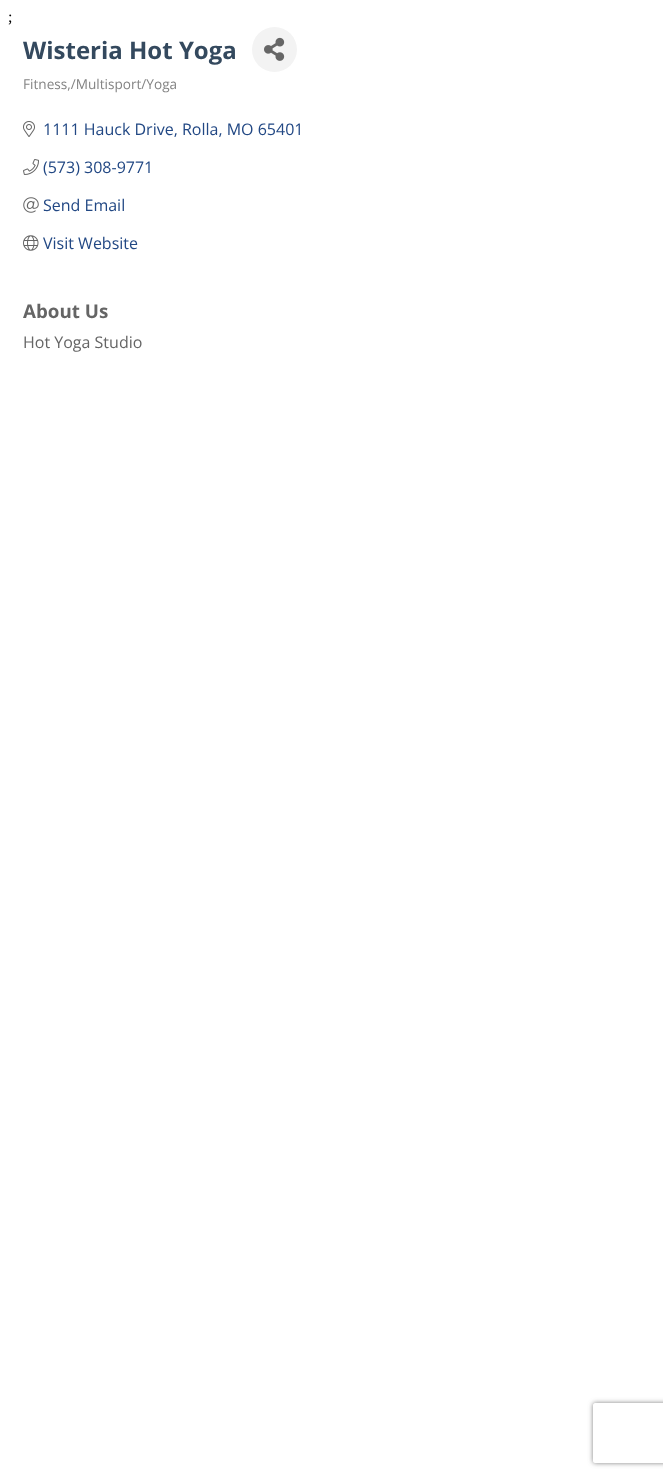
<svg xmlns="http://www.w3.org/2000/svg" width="663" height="1477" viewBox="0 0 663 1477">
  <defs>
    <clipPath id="clip1"><path d="M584 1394H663V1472H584ZM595 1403H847C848 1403 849 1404 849 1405V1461C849 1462 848 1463 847 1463H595C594 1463 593 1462 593 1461V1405C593 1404 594 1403 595 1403Z" clip-rule="evenodd"/></clipPath>
    <filter id="blur1" x="-50%" y="-200%" width="200%" height="500%"><feGaussianBlur stdDeviation="2.5"/></filter>
  </defs>
  <rect width="100%" height="100%" fill="#ffffff"/>
  <text x="8" y="22" font-family="Liberation Serif" font-size="16" fill="#000000">;</text>
  <text x="23" y="59" font-family="Open Sans" font-size="24" font-weight="bold" fill="#34495e">Wisteria Hot Yoga</text>
  <circle cx="274.5" cy="49.5" r="22.5" fill="#f3f3f3"/>
  <image x="264" y="37" width="21" height="24" href="img1.png"/>
  <text x="23" y="89" font-family="Open Sans" font-size="13.6" fill="#848484">Fitness,/Multisport/Yoga</text>
  <image x="23" y="121" width="12" height="16" href="img2.png"/>
  <text x="43" y="135" font-family="Open Sans" font-size="16" fill="#224884">1111 Hauck Drive, Rolla, MO 65401</text>
  <image x="23" y="159" width="16" height="16" href="img3.png"/>
  <text x="43" y="173" font-family="Open Sans" font-size="16" fill="#224884">(573) 308-9771</text>
  <image x="23" y="197" width="16" height="16" href="img4.png"/>
  <text x="43" y="211" font-family="Open Sans" font-size="16" fill="#224884">Send Email</text>
  <image x="23" y="235" width="16" height="16" href="img5.png"/>
  <text x="43" y="249" font-family="Open Sans" font-size="16" fill="#224884">Visit Website</text>
  <text x="23" y="318" font-family="Open Sans" font-size="18.75" font-weight="bold" fill="#656565">About Us</text>
  <text x="23" y="348" font-family="Open Sans" font-size="16" fill="#656565">Hot Yoga Studio</text>
  <g clip-path="url(#clip1)">
    <rect x="593" y="1403" width="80" height="60" rx="2" fill="#808080" filter="url(#blur1)"/>
  </g>
</svg>
